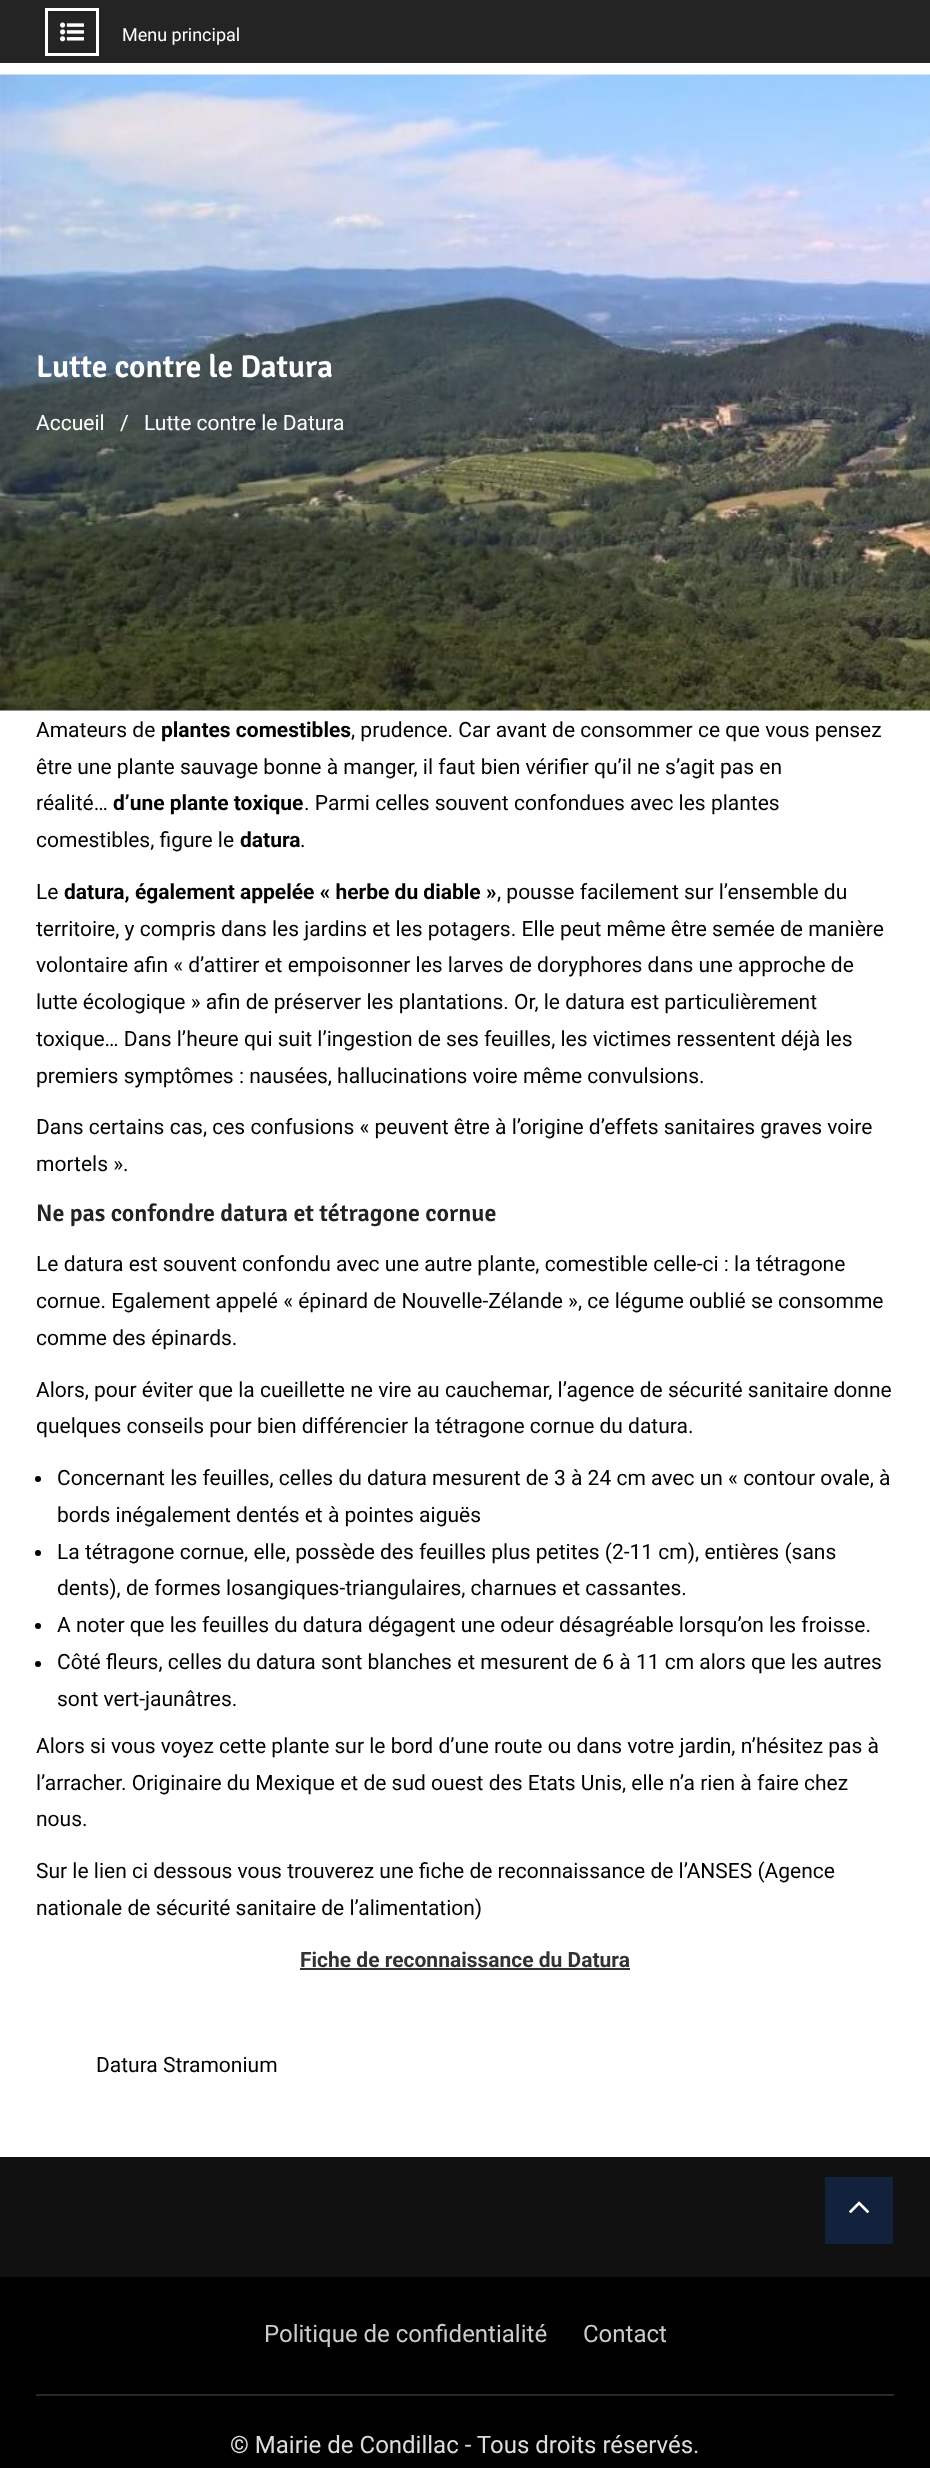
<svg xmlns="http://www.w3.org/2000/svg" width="930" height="2468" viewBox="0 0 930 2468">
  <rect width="100%" height="100%" fill="#ffffff"/>
  <rect x="0" y="0" width="930" height="63" fill="#242424"/>
  <rect x="46.5" y="9.5" width="51" height="45" fill="none" stroke="#fffffe" stroke-width="3"/>
  <image x="60" y="22" width="24" height="20" href="img1.png"/>
  <text x="122" y="41" font-family="Roboto" font-size="18" fill="#ffffff">Menu principal</text>
  <rect x="0" y="710" width="930" height="1" fill="#f7f7f7"/>
  <image x="0" y="74" width="930" height="637" href="img2.png"/>
  <text x="36" y="377" font-family="Signika" font-size="31.5" font-weight="600" fill="#ffffff">Lutte contre le Datura</text>
  <text x="36" y="430" font-family="Roboto" font-size="21" fill="#ffffff">Accueil</text>
  <text x="120" y="430" font-family="Roboto" font-size="21" fill="#ffffff">/</text>
  <text x="144" y="430" font-family="Roboto" font-size="21" fill="#ffffff">Lutte contre le Datura</text>
  <text x="36" y="737" font-family="Roboto" font-size="21" fill="#000000">Amateurs de</text>
  <text x="161" y="737" font-family="Roboto" font-size="21" font-weight="bold" fill="#000000">plantes comestibles</text>
  <text x="351" y="737" font-family="Roboto" font-size="21" fill="#000000">, prudence. Car avant de consommer ce que vous pensez</text>
  <text x="36" y="774" font-family="Roboto" font-size="21" fill="#000000">être une plante sauvage bonne à manger, il faut bien vérifier qu’il ne s’agit pas en</text>
  <text x="36" y="810" font-family="Roboto" font-size="21" fill="#000000">réalité…</text>
  <text x="113" y="810" font-family="Roboto" font-size="21" font-weight="bold" fill="#000000">d’une plante toxique</text>
  <text x="304" y="810" font-family="Roboto" font-size="21" fill="#000000">. Parmi celles souvent confondues avec les plantes</text>
  <text x="36" y="847" font-family="Roboto" font-size="21" fill="#000000">comestibles, figure le</text>
  <text x="240" y="847" font-family="Roboto" font-size="21" font-weight="bold" fill="#000000">datura</text>
  <text x="300" y="847" font-family="Roboto" font-size="21" fill="#000000">.</text>
  <text x="36" y="899" font-family="Roboto" font-size="21" fill="#000000">Le</text>
  <text x="64" y="899" font-family="Roboto" font-size="21" font-weight="bold" fill="#000000">datura, également appelée « herbe du diable »</text>
  <text x="497" y="899" font-family="Roboto" font-size="21" fill="#000000">, pousse facilement sur l’ensemble du</text>
  <text x="36" y="936" font-family="Roboto" font-size="21" fill="#000000">territoire, y compris dans les jardins et les potagers. Elle peut même être semée de manière</text>
  <text x="36" y="972" font-family="Roboto" font-size="21" fill="#000000">volontaire afin « d’attirer et empoisonner les larves de doryphores dans une approche de</text>
  <text x="36" y="1009" font-family="Roboto" font-size="21" fill="#000000">lutte écologique » afin de préserver les plantations. Or, le datura est particulièrement</text>
  <text x="36" y="1046" font-family="Roboto" font-size="21" fill="#000000">toxique… Dans l’heure qui suit l’ingestion de ses feuilles, les victimes ressentent déjà les</text>
  <text x="36" y="1083" font-family="Roboto" font-size="21" fill="#000000">premiers symptômes : nausées, hallucinations voire même convulsions.</text>
  <text x="36" y="1134" font-family="Roboto" font-size="21" fill="#000000">Dans certains cas, ces confusions « peuvent être à l’origine d’effets sanitaires graves voire</text>
  <text x="36" y="1171" font-family="Roboto" font-size="21" fill="#000000">mortels ».</text>
  <text x="36" y="1221" font-family="Signika" font-size="24" font-weight="600" fill="#222222">Ne pas confondre datura et tétragone cornue</text>
  <text x="36" y="1271" font-family="Roboto" font-size="21" fill="#000000">Le datura est souvent confondu avec une autre plante, comestible celle-ci : la tétragone</text>
  <text x="36" y="1308" font-family="Roboto" font-size="21" fill="#000000">cornue. Egalement appelé « épinard de Nouvelle-Zélande », ce légume oublié se consomme</text>
  <text x="36" y="1345" font-family="Roboto" font-size="21" fill="#000000">comme des épinards.</text>
  <text x="36" y="1397" font-family="Roboto" font-size="21" fill="#000000">Alors, pour éviter que la cueillette ne vire au cauchemar, l’agence de sécurité sanitaire donne</text>
  <text x="36" y="1433" font-family="Roboto" font-size="21" fill="#000000">quelques conseils pour bien différencier la tétragone cornue du datura.</text>
  <circle cx="38" cy="1479" r="3" fill="#000000"/>
  <text x="57" y="1485" font-family="Roboto" font-size="21" fill="#000000">Concernant les feuilles, celles du datura mesurent de 3 à 24 cm avec un « contour ovale, à</text>
  <text x="57" y="1522" font-family="Roboto" font-size="21" fill="#000000">bords inégalement dentés et à pointes aiguës</text>
  <circle cx="38" cy="1553" r="3" fill="#000000"/>
  <text x="57" y="1559" font-family="Roboto" font-size="21" fill="#000000">La tétragone cornue, elle, possède des feuilles plus petites (2-11 cm), entières (sans</text>
  <text x="57" y="1595" font-family="Roboto" font-size="21" fill="#000000">dents), de formes losangiques-triangulaires, charnues et cassantes.</text>
  <circle cx="38" cy="1626" r="3" fill="#000000"/>
  <text x="57" y="1632" font-family="Roboto" font-size="21" fill="#000000">A noter que les feuilles du datura dégagent une odeur désagréable lorsqu’on les froisse.</text>
  <circle cx="38" cy="1664" r="3" fill="#000000"/>
  <text x="57" y="1669" font-family="Roboto" font-size="21" fill="#000000">Côté fleurs, celles du datura sont blanches et mesurent de 6 à 11 cm alors que les autres</text>
  <text x="57" y="1706" font-family="Roboto" font-size="21" fill="#000000">sont vert-jaunâtres.</text>
  <text x="36" y="1753" font-family="Roboto" font-size="21" fill="#000000">Alors si vous voyez cette plante sur le bord d’une route ou dans votre jardin, n’hésitez pas à</text>
  <text x="36" y="1790" font-family="Roboto" font-size="21" fill="#000000">l’arracher. Originaire du Mexique et de sud ouest des Etats Unis, elle n’a rien à faire chez</text>
  <text x="36" y="1826" font-family="Roboto" font-size="21" fill="#000000">nous.</text>
  <text x="36" y="1878" font-family="Roboto" font-size="21" fill="#000000">Sur le lien ci dessous vous trouverez une fiche de reconnaissance de l’ANSES (Agence</text>
  <text x="36" y="1915" font-family="Roboto" font-size="21" fill="#000000">nationale de sécurité sanitaire de l’alimentation)</text>
  <text x="300" y="1967" font-family="Roboto" font-size="21" font-weight="bold" fill="#323232">Fiche de reconnaissance du Datura</text>
  <rect x="300" y="1968" width="330" height="2" fill="#323232"/>
  <text x="96" y="2072" font-family="Roboto" font-size="21" fill="#000000">Datura Stramonium</text>
  <rect x="0" y="2157" width="930" height="120" fill="#111111"/>
  <rect x="0" y="2277" width="930" height="191" fill="#000000"/>
  <rect x="36" y="2394" width="858" height="2" fill="#282828"/>
  <text x="264" y="2342" font-family="Roboto" font-size="24" fill="#cccccc">Politique de confidentialité</text>
  <text x="583" y="2342" font-family="Roboto" font-size="24" fill="#cccccc">Contact</text>
  <text x="230" y="2453" font-family="Roboto" font-size="24" fill="#dddddd">© Mairie de Condillac - Tous droits réservés.</text>
  <rect x="825" y="2177" width="68" height="67" fill="#12223d"/>
  <image x="849" y="2201" width="21" height="12" href="img3.png"/>
</svg>
